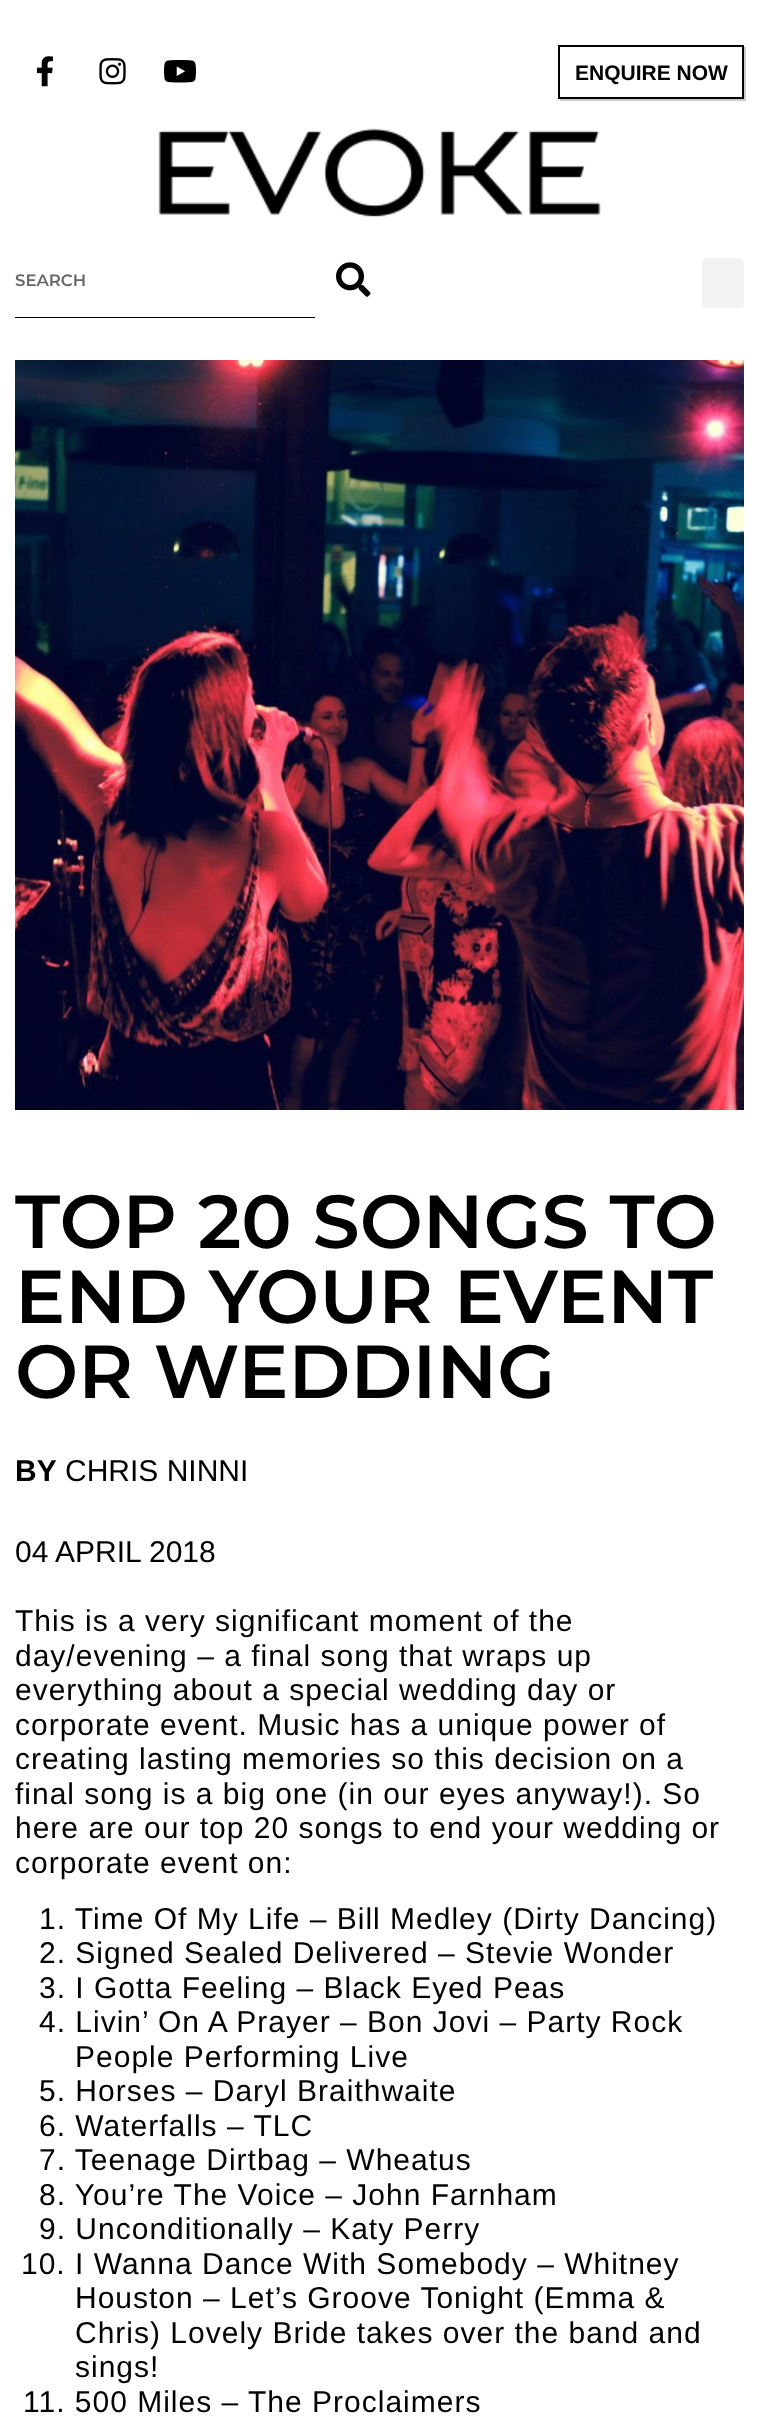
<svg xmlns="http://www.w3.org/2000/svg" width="759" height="2433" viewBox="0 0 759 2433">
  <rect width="100%" height="100%" fill="#ffffff"/>
  <image x="36" y="56" width="18" height="31" href="img1.png"/>
  <image x="99" y="58" width="27" height="27" href="img2.png"/>
  <image x="164" y="60" width="32" height="23" href="img3.png"/>
  <path d="M560 99V101H746V47H744V99Z" fill="#cccccc"/>
  <rect x="559" y="46" width="184" height="52" fill="none" stroke="#000000" stroke-width="2"/>
  <text x="575" y="80" font-family="Liberation Sans" font-size="21" font-weight="bold" fill="#000000">ENQUIRE NOW</text>
  <image x="158" y="128" width="443" height="89" href="img4.png"/>
  <rect x="15" y="317" width="300" height="1" fill="#000000"/>
  <text x="15" y="286" font-family="Montserrat" font-size="16.5" font-weight="600" fill="#666666">SEARCH</text>
  <image x="336" y="262" width="35" height="35" href="img5.png"/>
  <rect x="702" y="258" width="42" height="50" rx="5" fill="#f2f2f2"/>
  <image x="15" y="360" width="729" height="750" href="img6.png"/>
  <text x="15" y="1248" font-family="Montserrat" font-size="75" font-weight="600" fill="#000000">TOP 20 SONGS TO</text>
  <text x="15" y="1323" font-family="Montserrat" font-size="75" font-weight="600" fill="#000000">END YOUR EVENT</text>
  <text x="15" y="1398" font-family="Montserrat" font-size="75" font-weight="600" fill="#000000">OR WEDDING</text>
  <text x="15" y="1481" font-family="Liberation Sans" font-size="30" font-weight="bold" fill="#000000">BY</text>
  <text x="65" y="1481" font-family="Liberation Sans" font-size="30" fill="#000000">CHRIS NINNI</text>
  <text x="15" y="1562" font-family="Liberation Sans" font-size="30" fill="#000000">04 APRIL 2018</text>
  <text x="15" y="1631" font-family="Liberation Sans" font-size="30" letter-spacing="1" fill="#000000">This is a very significant moment of the</text>
  <text x="15" y="1666" font-family="Liberation Sans" font-size="30" letter-spacing="1" fill="#000000">day/evening – a final song that wraps up</text>
  <text x="15" y="1700" font-family="Liberation Sans" font-size="30" letter-spacing="1" fill="#000000">everything about a special wedding day or</text>
  <text x="15" y="1735" font-family="Liberation Sans" font-size="30" letter-spacing="1" fill="#000000">corporate event. Music has a unique power of</text>
  <text x="15" y="1769" font-family="Liberation Sans" font-size="30" letter-spacing="1" fill="#000000">creating lasting memories so this decision on a</text>
  <text x="15" y="1804" font-family="Liberation Sans" font-size="30" letter-spacing="1" fill="#000000">final song is a big one (in our eyes anyway!). So</text>
  <text x="15" y="1838" font-family="Liberation Sans" font-size="30" letter-spacing="1" fill="#000000">here are our top 20 songs to end your wedding or</text>
  <text x="15" y="1873" font-family="Liberation Sans" font-size="30" letter-spacing="1" fill="#000000">corporate event on:</text>
  <text x="39" y="1929" font-family="Liberation Sans" font-size="30" letter-spacing="1" fill="#000000">1. Time Of My Life – Bill Medley (Dirty Dancing)</text>
  <text x="39" y="1963" font-family="Liberation Sans" font-size="30" letter-spacing="1" fill="#000000">2. Signed Sealed Delivered – Stevie Wonder</text>
  <text x="39" y="1998" font-family="Liberation Sans" font-size="30" letter-spacing="1" fill="#000000">3. I Gotta Feeling – Black Eyed Peas</text>
  <text x="39" y="2032" font-family="Liberation Sans" font-size="30" letter-spacing="1" fill="#000000">4. Livin’ On A Prayer – Bon Jovi – Party Rock</text>
  <text x="75" y="2067" font-family="Liberation Sans" font-size="30" letter-spacing="1" fill="#000000">People Performing Live</text>
  <text x="39" y="2101" font-family="Liberation Sans" font-size="30" letter-spacing="1" fill="#000000">5. Horses – Daryl Braithwaite</text>
  <text x="39" y="2136" font-family="Liberation Sans" font-size="30" letter-spacing="1" fill="#000000">6. Waterfalls – TLC</text>
  <text x="39" y="2170" font-family="Liberation Sans" font-size="30" letter-spacing="1" fill="#000000">7. Teenage Dirtbag – Wheatus</text>
  <text x="39" y="2205" font-family="Liberation Sans" font-size="30" letter-spacing="1" fill="#000000">8. You’re The Voice – John Farnham</text>
  <text x="39" y="2239" font-family="Liberation Sans" font-size="30" letter-spacing="1" fill="#000000">9. Unconditionally – Katy Perry</text>
  <text x="21" y="2274" font-family="Liberation Sans" font-size="30" letter-spacing="1" fill="#000000">10. I Wanna Dance With Somebody – Whitney</text>
  <text x="75" y="2308" font-family="Liberation Sans" font-size="30" letter-spacing="1" fill="#000000">Houston – Let’s Groove Tonight (Emma &amp;</text>
  <text x="75" y="2343" font-family="Liberation Sans" font-size="30" letter-spacing="1" fill="#000000">Chris) Lovely Bride takes over the band and</text>
  <text x="75" y="2377" font-family="Liberation Sans" font-size="30" letter-spacing="1" fill="#000000">sings!</text>
  <text x="23" y="2412" font-family="Liberation Sans" font-size="30" letter-spacing="1" fill="#000000">11. 500 Miles – The Proclaimers</text>
</svg>
